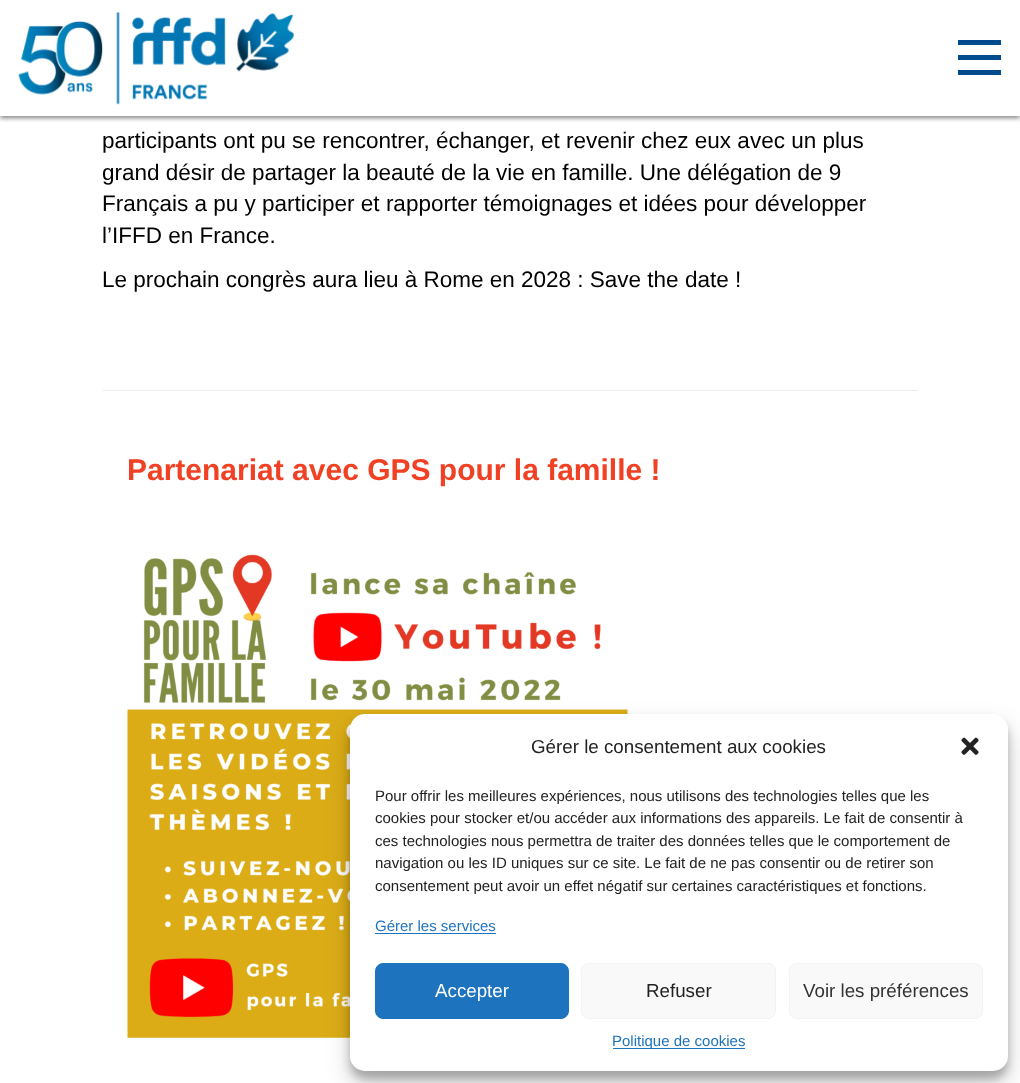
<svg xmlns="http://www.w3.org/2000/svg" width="1020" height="1083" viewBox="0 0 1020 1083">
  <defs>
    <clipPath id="clip1"><rect x="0" y="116" width="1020" height="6"/></clipPath>
    <filter id="blur1" x="-50%" y="-200%" width="200%" height="500%"><feGaussianBlur stdDeviation="2.5"/></filter>
    <filter id="blur2" x="-50%" y="-200%" width="200%" height="500%"><feGaussianBlur stdDeviation="4"/></filter>
    <filter id="blur3" x="-50%" y="-200%" width="200%" height="500%"><feGaussianBlur stdDeviation="12.5"/></filter>
  </defs>
  <rect width="100%" height="100%" fill="#ffffff"/>
  <g clip-path="url(#clip1)">
    <rect x="0" y="1" width="1020" height="117" fill="#000000" fill-opacity="0.5" filter="url(#blur1)"/>
  </g>
  <image x="18" y="12" width="276" height="93" href="img1.png"/>
  <rect x="958" y="40" width="43" height="5" fill="#004b8e"/>
  <rect x="958" y="55" width="43" height="5" fill="#004b8e"/>
  <rect x="958" y="70" width="43" height="5" fill="#004b8e"/>
  <text x="102" y="148" font-family="Liberation Sans" font-size="22.5" fill="#000000">participants ont pu se rencontrer, échanger, et revenir chez eux avec un plus</text>
  <text x="102" y="180" font-family="Liberation Sans" font-size="22.5" fill="#000000">grand désir de partager la beauté de la vie en famille. Une délégation de 9</text>
  <text x="102" y="211" font-family="Liberation Sans" font-size="22.5" fill="#000000">Français a pu y participer et rapporter témoignages et idées pour développer</text>
  <text x="102" y="243" font-family="Liberation Sans" font-size="22.5" fill="#000000">l’IFFD en France.</text>
  <text x="102" y="287" font-family="Liberation Sans" font-size="22.5" fill="#000000">Le prochain congrès aura lieu à Rome en 2028 : Save the date !</text>
  <rect x="103" y="390" width="815" height="1" fill="#eeeeee"/>
  <text x="127" y="480" font-family="Liberation Sans" font-size="30" font-weight="bold" fill="#f14124">Partenariat avec GPS pour la famille !</text>
  <image x="127" y="554" width="501" height="484" href="img2.png"/>
  <rect x="350" y="721" width="658" height="358" rx="15" fill="#000000" fill-opacity="0.23" filter="url(#blur2)"/>
  <rect x="350" y="726" width="658" height="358" rx="15" fill="#000000" fill-opacity="0.19" filter="url(#blur3)"/>
  <rect x="350" y="714" width="658" height="357" rx="15" fill="#ffffff"/>
  <text x="531" y="753" font-family="Liberation Sans" font-size="18.75" fill="#222222">Gérer le consentement aux cookies</text>
  <image x="961" y="737" width="18" height="18" href="img3.png"/>
  <text x="375" y="801" font-family="Liberation Sans" font-size="15" fill="#222222">Pour offrir les meilleures expériences, nous utilisons des technologies telles que les</text>
  <text x="375" y="823" font-family="Liberation Sans" font-size="15" fill="#222222">cookies pour stocker et/ou accéder aux informations des appareils. Le fait de consentir à</text>
  <text x="375" y="846" font-family="Liberation Sans" font-size="15" fill="#222222">ces technologies nous permettra de traiter des données telles que le comportement de</text>
  <text x="375" y="868" font-family="Liberation Sans" font-size="15" fill="#222222">navigation ou les ID uniques sur ce site. Le fait de ne pas consentir ou de retirer son</text>
  <text x="375" y="891" font-family="Liberation Sans" font-size="15" fill="#222222">consentement peut avoir un effet négatif sur certaines caractéristiques et fonctions.</text>
  <text x="375" y="931" font-family="Liberation Sans" font-size="15" fill="#1e73be">Gérer les services</text>
  <rect x="375" y="933" width="121" height="1" fill="#1e73be"/>
  <rect x="375.5" y="963.5" width="193" height="55" rx="7.5" fill="#1e73be" stroke="#1e73be"/>
  <text x="435" y="997" font-family="Liberation Sans" font-size="18.75" fill="#ffffff">Accepter</text>
  <rect x="581.5" y="963.5" width="194" height="55" rx="7.5" fill="#f9f9f9" stroke="#f2f2f2"/>
  <text x="646" y="997" font-family="Liberation Sans" font-size="18.75" fill="#222222">Refuser</text>
  <rect x="789.5" y="963.5" width="193" height="55" rx="7.5" fill="#f9f9f9" stroke="#f2f2f2"/>
  <text x="803" y="997" font-family="Liberation Sans" font-size="18.75" fill="#333333">Voir les préférences</text>
  <rect x="613" y="1048" width="132" height="1" fill="#1e73be"/>
  <text x="612" y="1046" font-family="Liberation Sans" font-size="15" fill="#1e73be">Politique de cookies</text>
</svg>
